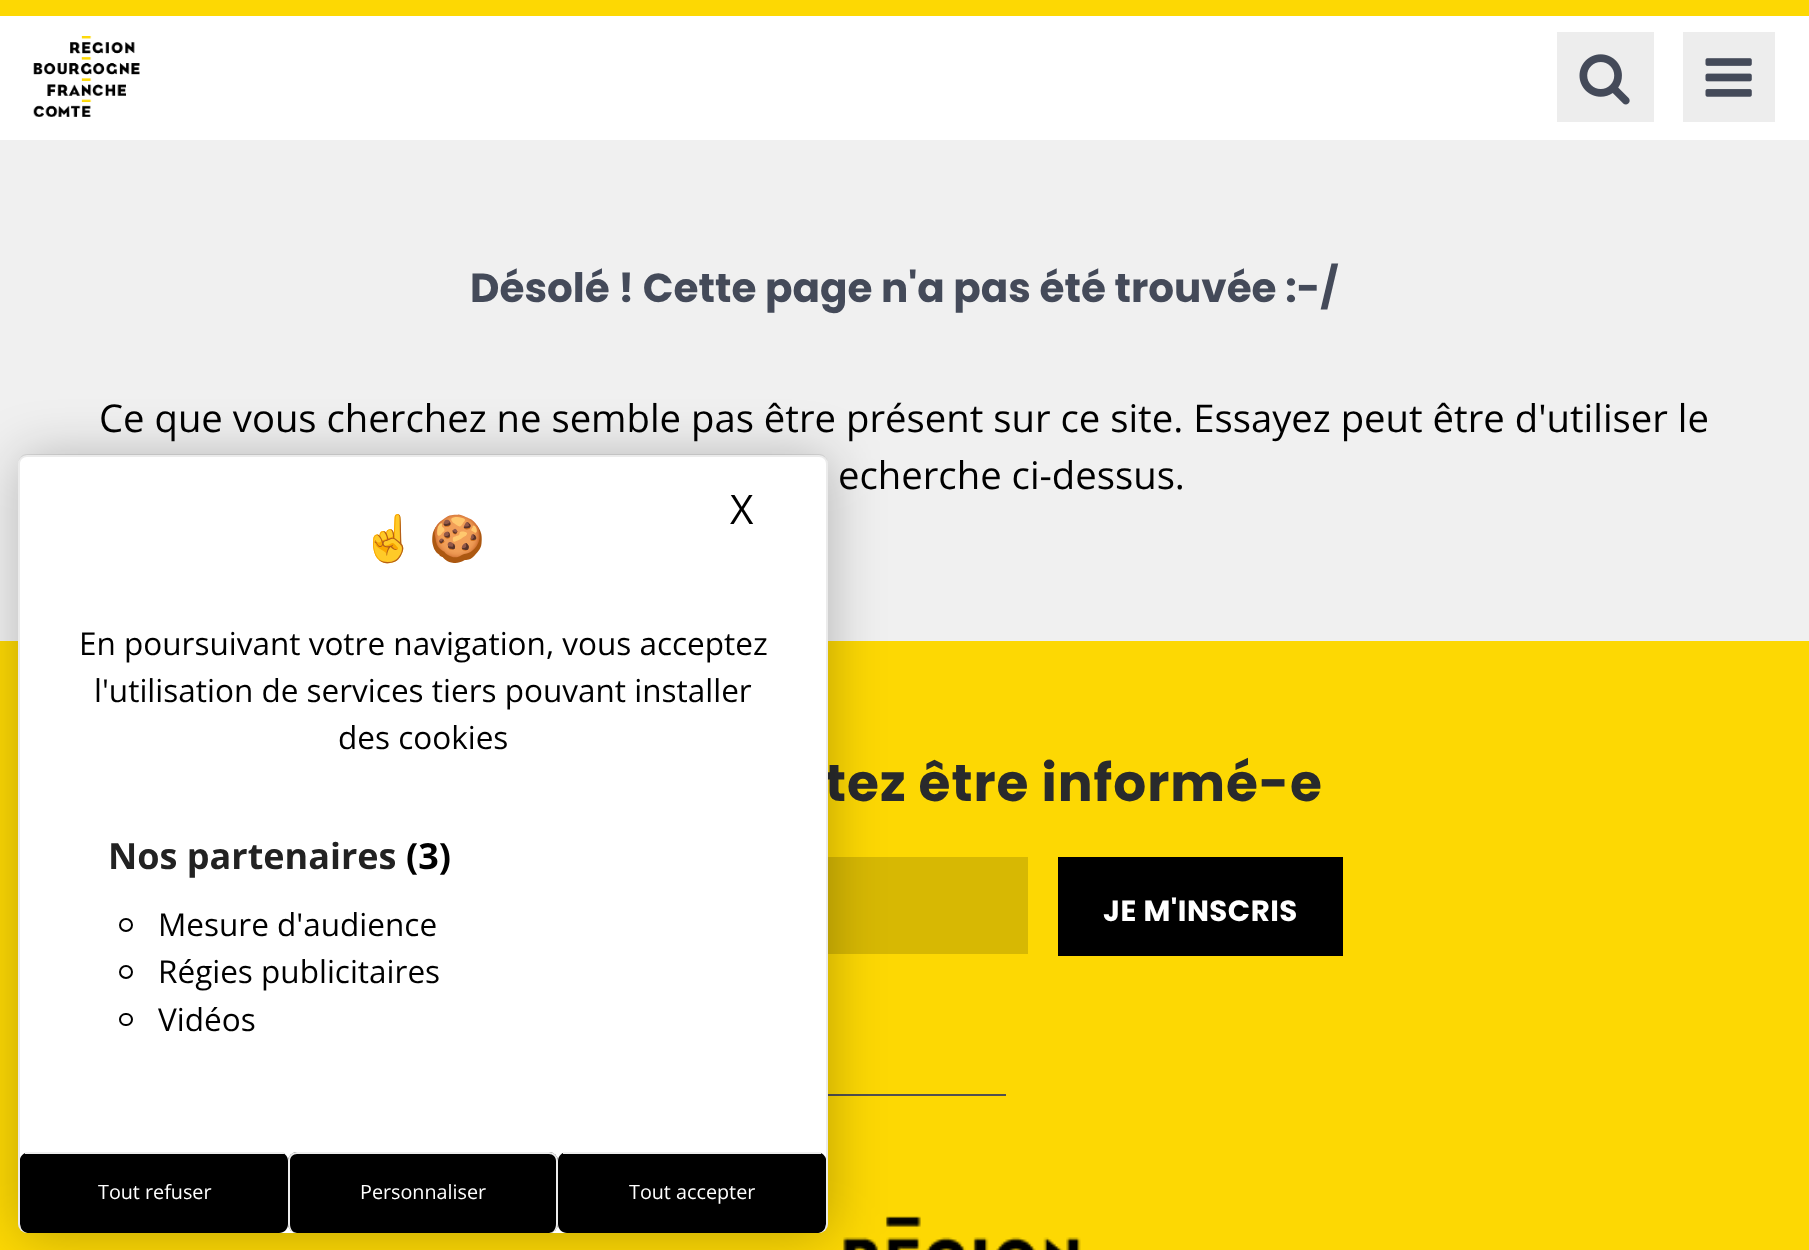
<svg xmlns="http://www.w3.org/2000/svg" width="1809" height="1250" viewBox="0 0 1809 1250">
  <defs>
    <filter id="blur1" x="-50%" y="-200%" width="200%" height="500%"><feGaussianBlur stdDeviation="27"/></filter>
  </defs>
  <rect width="100%" height="100%" fill="#f0f0f0"/>
  <rect x="0" y="16" width="1809" height="124" fill="#ffffff"/>
  <rect x="0" y="0" width="1809" height="16" fill="#fdd803"/>
  <image x="33" y="36" width="107" height="81" href="img1.png"/>
  <rect x="1557" y="32" width="97" height="90" fill="#ededed"/>
  <image x="1579" y="54" width="51" height="51" href="img2.png"/>
  <rect x="1683" y="32" width="92" height="90" fill="#ededed"/>
  <image x="1705" y="58" width="47" height="39" href="img3.png"/>
  <text x="470" y="302" font-family="Poppins" font-size="40.5" font-weight="bold" fill="#444a59">Désolé ! Cette page n'a pas été trouvée :-/</text>
  <text x="99" y="432" font-family="Open Sans" font-size="38.25" fill="#000000">Ce que vous cherchez ne semble pas être présent sur ce site. Essayez peut être d'utiliser le</text>
  <text x="838" y="489" font-family="Open Sans" font-size="38.25" fill="#000000">echerche ci-dessus.</text>
  <rect x="0" y="641" width="1809" height="609" fill="#fdd803"/>
  <text x="825" y="801" font-family="Poppins" font-size="51.75" font-weight="bold" letter-spacing="1" fill="#292a2c">tez être informé-e</text>
  <rect x="828" y="857" width="200" height="97" fill="#d7b803"/>
  <rect x="1058" y="857" width="285" height="99" fill="#000000"/>
  <text x="1103" y="921" font-family="Poppins" font-size="29.25" font-weight="bold" letter-spacing="0.5" fill="#ffffff">JE M'INSCRIS</text>
  <rect x="828" y="1094" width="178" height="2" fill="#505050"/>
  <image x="843" y="1216" width="238" height="34" href="img4.png"/>
  <rect x="20" y="457" width="810" height="778" rx="9" fill="#000000" fill-opacity="0.25" filter="url(#blur1)"/>
  <rect x="18" y="455" width="810" height="778" rx="9" fill="#ffffff"/>
  <path d="M27 454H819C824 454 828 459 828 464V1224C828 1229 824 1233 819 1233H27C22 1233 18 1229 18 1224V464C18 459 22 454 27 454ZM27 457H819C823 457 826 460 826 464V1224C826 1229 823 1233 819 1233H27C23 1233 20 1229 20 1224V464C20 460 23 457 27 457Z" fill="#000000" fill-opacity="0.08" fill-rule="evenodd"/>
  <text x="730" y="524" font-family="Open Sans" font-size="40.5" fill="#000000">X</text>
  <text x="361" y="554" font-family="Noto Color Emoji" font-size="45" font-weight="bold" fill="#000000">☝️</text>
  <text x="429" y="554" font-family="Noto Color Emoji" font-size="45" font-weight="bold" fill="#000000">🍪</text>
  <text x="79" y="655" font-family="Open Sans" font-size="31.5" fill="#000000">En poursuivant votre navigation, vous acceptez</text>
  <text x="94" y="702" font-family="Open Sans" font-size="31.5" fill="#000000">l'utilisation de services tiers pouvant installer</text>
  <text x="338" y="749" font-family="Open Sans" font-size="31.5" fill="#000000">des cookies</text>
  <text x="108" y="869" font-family="Open Sans" font-size="36" font-weight="bold" fill="#222222">Nos partenaires</text>
  <text x="406" y="869" font-family="Open Sans" font-size="36" font-weight="bold" fill="#000000">(3)</text>
  <circle cx="126" cy="925" r="6" fill="none" stroke="#000000" stroke-width="2"/>
  <text x="158" y="936" font-family="Open Sans" font-size="31.5" fill="#000000">Mesure d'audience</text>
  <circle cx="126" cy="972" r="6" fill="none" stroke="#000000" stroke-width="2"/>
  <text x="158" y="983" font-family="Open Sans" font-size="31.5" fill="#000000">Régies publicitaires</text>
  <rect x="120" y="1014" width="12" height="11" rx="5.5" fill="none" stroke="#000000" stroke-width="2"/>
  <text x="158" y="1031" font-family="Open Sans" font-size="31.5" fill="#000000">Vidéos</text>
  <path d="M29 1152H279C284 1152 288 1156 288 1161V1224C288 1229 284 1233 279 1233H29C26 1233 22 1231 21 1228L20 1224V1159C21 1155 25 1152 29 1152Z" fill="#000000"/>
  <rect x="25" y="1152" width="259" height="2" fill="#eeeeee"/>
  <text x="98" y="1199" font-family="Open Sans" font-size="19.75" fill="#ffffff">Tout refuser</text>
  <rect x="288" y="1152" width="270" height="81" rx="9" fill="#000000"/>
  <path d="M297 1152H549C554 1152 558 1156 558 1161V1224C558 1229 554 1233 549 1233H297C292 1233 288 1229 288 1224V1161C288 1156 292 1152 297 1152ZM297 1154H549C553 1154 556 1157 556 1161V1224C556 1229 553 1233 549 1233H297C293 1233 290 1229 290 1224V1161C290 1157 293 1154 297 1154Z" fill="#eeeeee" fill-rule="evenodd"/>
  <text x="360" y="1199" font-family="Open Sans" font-size="19.75" fill="#ffffff">Personnaliser</text>
  <path d="M567 1152C562 1152 558 1156 558 1161V1224C558 1229 562 1233 567 1233H817C820 1233 824 1231 825 1228L826 1224V1159C825 1155 821 1152 817 1152Z" fill="#000000"/>
  <rect x="563" y="1152" width="258" height="2" fill="#eeeeee"/>
  <text x="629" y="1199" font-family="Open Sans" font-size="19.75" fill="#ffffff">Tout accepter</text>
</svg>
